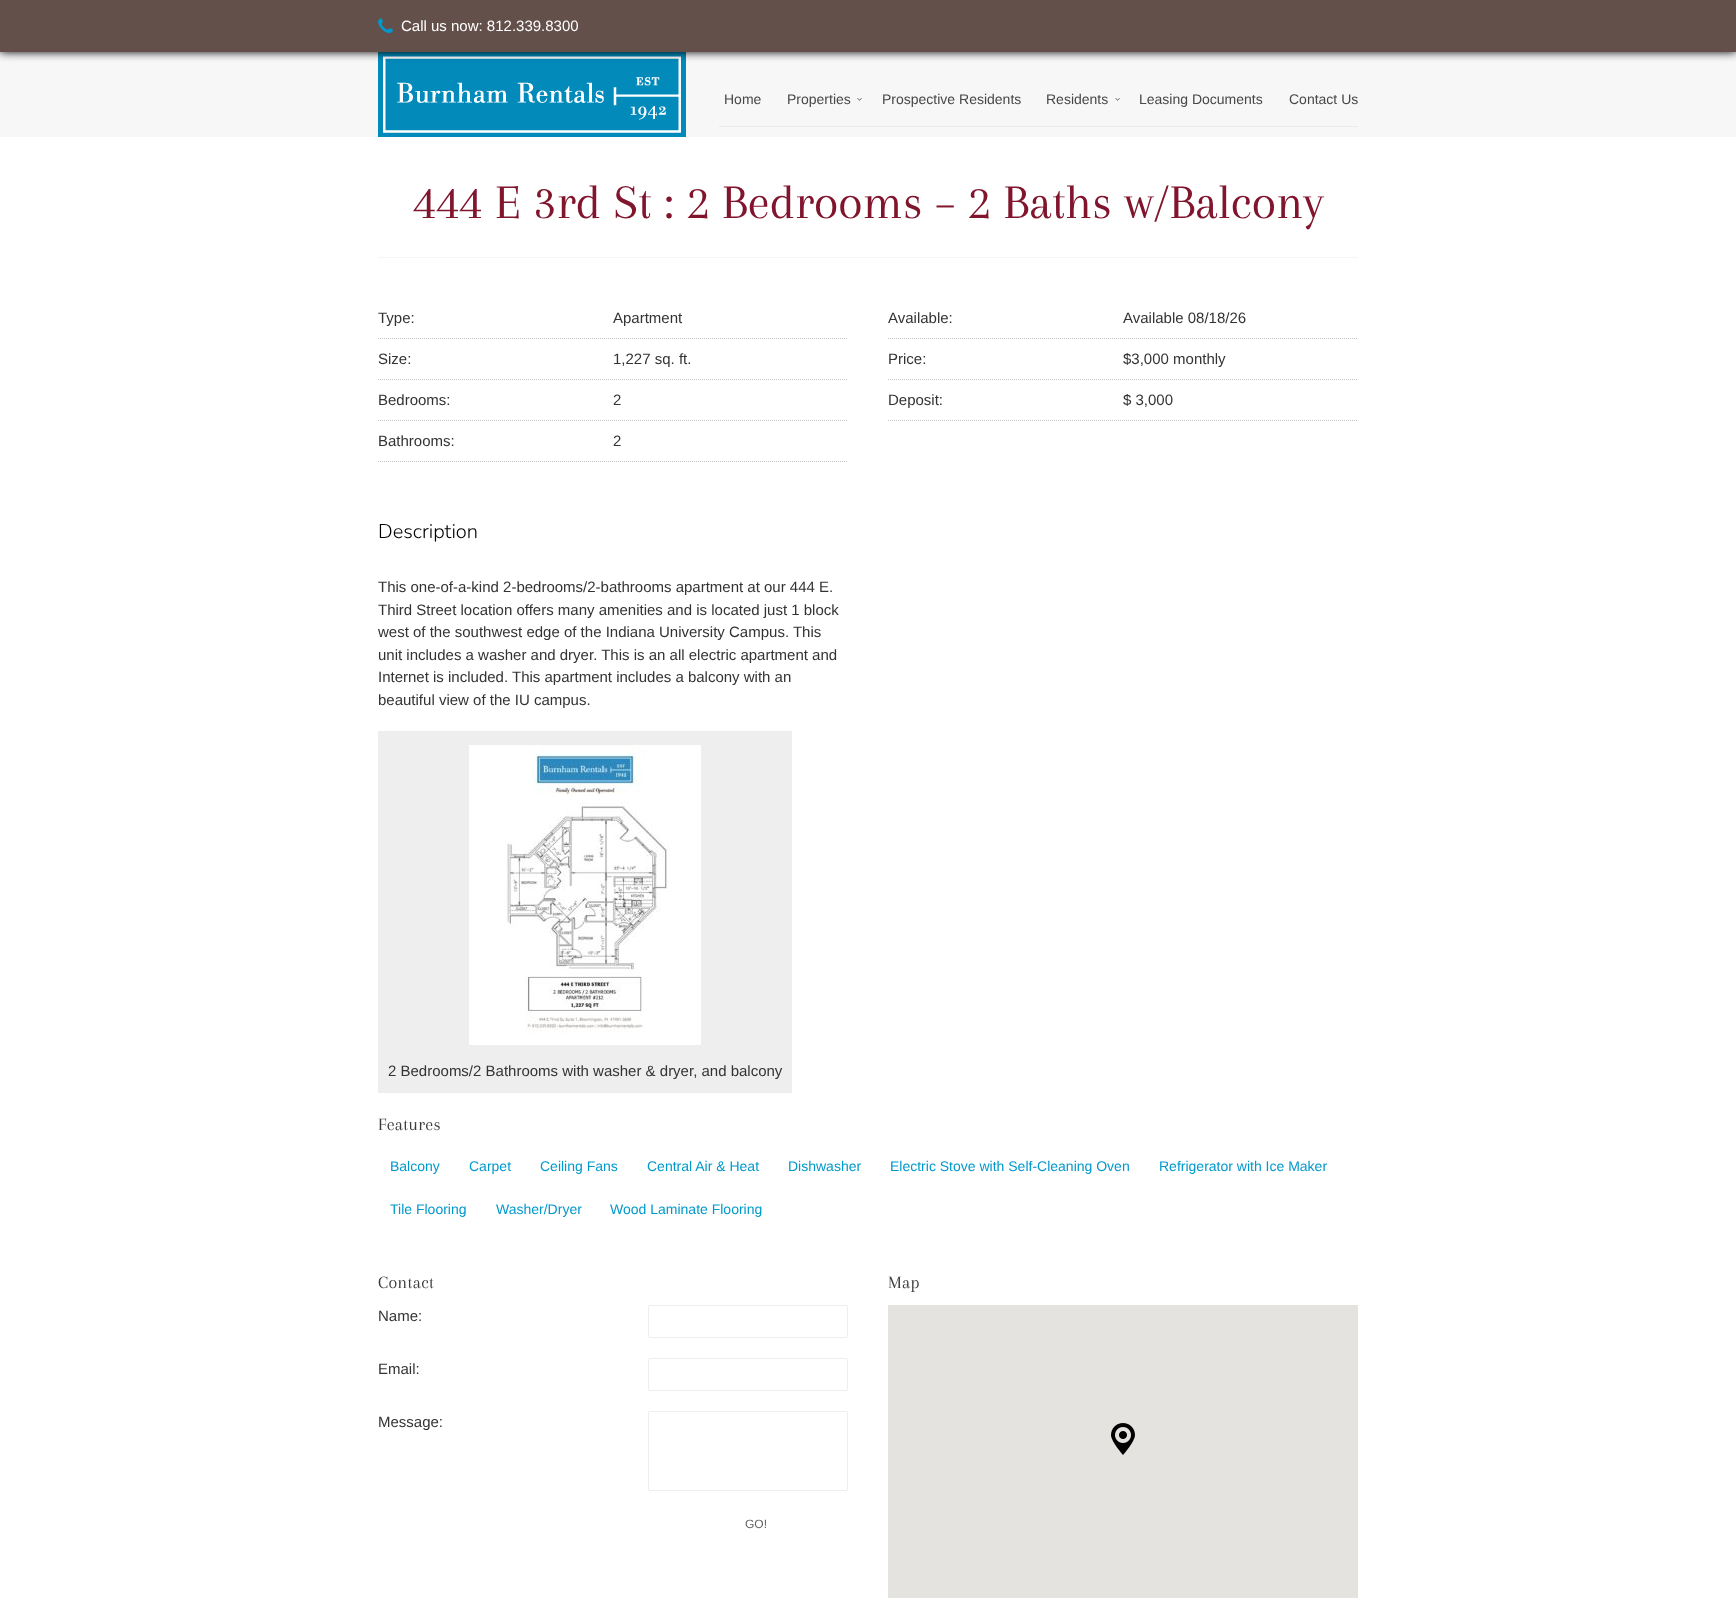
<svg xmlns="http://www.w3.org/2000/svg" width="1736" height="1598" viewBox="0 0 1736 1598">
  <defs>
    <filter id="blur1" x="-50%" y="-200%" width="200%" height="500%"><feGaussianBlur stdDeviation="5"/></filter>
  </defs>
  <rect width="100%" height="100%" fill="#f7f7f7"/>
  <image x="378" y="52" width="308" height="85" href="img2.png"/>
  <rect x="0" y="0" width="1736" height="52" fill="#000000" filter="url(#blur1)"/>
  <rect x="0" y="0" width="1736" height="52" fill="#64504b"/>
  <image x="378" y="18" width="15" height="16" href="img1.png"/>
  <text x="401" y="31" font-family="Liberation Sans" font-size="15" fill="#ffffff">Call us now: 812.339.8300</text>
  <rect x="719" y="126" width="639" height="1" fill="#ebebeb"/>
  <text x="724" y="104" font-family="Liberation Sans" font-size="14" fill="#474747">Home</text>
  <text x="787" y="104" font-family="Liberation Sans" font-size="14" fill="#474747">Properties</text>
  <image x="857" y="98" width="5" height="3" href="img3.png"/>
  <text x="882" y="104" font-family="Liberation Sans" font-size="14" fill="#474747">Prospective Residents</text>
  <text x="1046" y="104" font-family="Liberation Sans" font-size="14" fill="#474747">Residents</text>
  <image x="1115" y="98" width="5" height="3" href="img3.png"/>
  <text x="1139" y="104" font-family="Liberation Sans" font-size="14" fill="#474747">Leasing Documents</text>
  <text x="1289" y="104" font-family="Liberation Sans" font-size="14" fill="#474747">Contact Us</text>
  <rect x="0" y="137" width="1736" height="1461" fill="#ffffff"/>
  <rect x="378" y="257" width="980" height="1" fill="#f5f5f5"/>
  <text x="413" y="218" font-family="Arapey" font-size="50" fill="#81152e">444 E 3rd St : 2 Bedrooms – 2 Baths w/Balcony</text>
  <path d="M378 338.5H848" fill="none" stroke="#c4c4c4" stroke-dasharray="1 1"/>
  <text x="378" y="323" font-family="Liberation Sans" font-size="15" fill="#333333">Type:</text>
  <text x="613" y="323" font-family="Liberation Sans" font-size="15" fill="#333333">Apartment</text>
  <path d="M378 379.5H848" fill="none" stroke="#c4c4c4" stroke-dasharray="1 1"/>
  <text x="378" y="364" font-family="Liberation Sans" font-size="15" fill="#333333">Size:</text>
  <text x="613" y="364" font-family="Liberation Sans" font-size="15" fill="#333333">1,227 sq. ft.</text>
  <path d="M378 420.5H848" fill="none" stroke="#c4c4c4" stroke-dasharray="1 1"/>
  <text x="378" y="405" font-family="Liberation Sans" font-size="15" fill="#333333">Bedrooms:</text>
  <text x="613" y="405" font-family="Liberation Sans" font-size="15" fill="#333333">2</text>
  <path d="M378 461.5H848" fill="none" stroke="#c4c4c4" stroke-dasharray="1 1"/>
  <text x="378" y="446" font-family="Liberation Sans" font-size="15" fill="#333333">Bathrooms:</text>
  <text x="613" y="446" font-family="Liberation Sans" font-size="15" fill="#333333">2</text>
  <path d="M888 338.5H1358" fill="none" stroke="#c4c4c4" stroke-dasharray="1 1"/>
  <text x="888" y="323" font-family="Liberation Sans" font-size="15" fill="#333333">Available:</text>
  <text x="1123" y="323" font-family="Liberation Sans" font-size="15" fill="#333333">Available 08/18/26</text>
  <path d="M888 379.5H1358" fill="none" stroke="#c4c4c4" stroke-dasharray="1 1"/>
  <text x="888" y="364" font-family="Liberation Sans" font-size="15" fill="#333333">Price:</text>
  <text x="1123" y="364" font-family="Liberation Sans" font-size="15" fill="#333333">$3,000 monthly</text>
  <path d="M888 420.5H1358" fill="none" stroke="#c4c4c4" stroke-dasharray="1 1"/>
  <text x="888" y="405" font-family="Liberation Sans" font-size="15" fill="#333333">Deposit:</text>
  <text x="1123" y="405" font-family="Liberation Sans" font-size="15" fill="#333333">$ 3,000</text>
  <text x="378" y="538" font-family="Nunito" font-size="20" font-weight="300" fill="#000000">Description</text>
  <text x="378" y="592" font-family="Liberation Sans" font-size="15" fill="#333333">This one-of-a-kind 2-bedrooms/2-bathrooms apartment at our 444 E.</text>
  <text x="378" y="615" font-family="Liberation Sans" font-size="15" fill="#333333">Third Street location offers many amenities and is located just 1 block</text>
  <text x="378" y="637" font-family="Liberation Sans" font-size="15" fill="#333333">west of the southwest edge of the Indiana University Campus. This</text>
  <text x="378" y="660" font-family="Liberation Sans" font-size="15" fill="#333333">unit includes a washer and dryer. This is an all electric apartment and</text>
  <text x="378" y="682" font-family="Liberation Sans" font-size="15" fill="#333333">Internet is included. This apartment includes a balcony with an</text>
  <text x="378" y="705" font-family="Liberation Sans" font-size="15" fill="#333333">beautiful view of the IU campus.</text>
  <rect x="378" y="731" width="414" height="362" fill="#eeeeee"/>
  <image x="469" y="745" width="232" height="300" href="img4.png"/>
  <text x="388" y="1076" font-family="Liberation Sans" font-size="15" fill="#333333">2 Bedrooms/2 Bathrooms with washer &amp; dryer, and balcony</text>
  <text x="378" y="1130" font-family="Arapey" font-size="18" letter-spacing="0.25" fill="#3c3c3c">Features</text>
  <text x="390" y="1171" font-family="Liberation Sans" font-size="14" fill="#0099cc">Balcony</text>
  <text x="469" y="1171" font-family="Liberation Sans" font-size="14" fill="#0099cc">Carpet</text>
  <text x="540" y="1171" font-family="Liberation Sans" font-size="14" fill="#0099cc">Ceiling Fans</text>
  <text x="647" y="1171" font-family="Liberation Sans" font-size="14" fill="#0099cc">Central Air &amp; Heat</text>
  <text x="788" y="1171" font-family="Liberation Sans" font-size="14" fill="#0099cc">Dishwasher</text>
  <text x="890" y="1171" font-family="Liberation Sans" font-size="14" fill="#0099cc">Electric Stove with Self-Cleaning Oven</text>
  <text x="1159" y="1171" font-family="Liberation Sans" font-size="14" fill="#0099cc">Refrigerator with Ice Maker</text>
  <text x="390" y="1214" font-family="Liberation Sans" font-size="14" fill="#0099cc">Tile Flooring</text>
  <text x="496" y="1214" font-family="Liberation Sans" font-size="14" fill="#0099cc">Washer/Dryer</text>
  <text x="610" y="1214" font-family="Liberation Sans" font-size="14" fill="#0099cc">Wood Laminate Flooring</text>
  <text x="378" y="1288" font-family="Arapey" font-size="18" letter-spacing="0.25" fill="#3c3c3c">Contact</text>
  <text x="378" y="1321" font-family="Liberation Sans" font-size="15" fill="#333333">Name:</text>
  <rect x="648.5" y="1305.5" width="199" height="32" rx="1.5" fill="none" stroke="#eeeeee"/>
  <text x="378" y="1374" font-family="Liberation Sans" font-size="15" fill="#333333">Email:</text>
  <rect x="648.5" y="1358.5" width="199" height="32" rx="1.5" fill="none" stroke="#eeeeee"/>
  <text x="378" y="1427" font-family="Liberation Sans" font-size="15" fill="#333333">Message:</text>
  <rect x="648.5" y="1411.5" width="199" height="79" rx="1.5" fill="none" stroke="#eeeeee"/>
  <text x="745" y="1528" font-family="Liberation Sans" font-size="12" fill="#606060">GO!</text>
  <text x="888" y="1288" font-family="Arapey" font-size="18" letter-spacing="0.25" fill="#3c3c3c">Map</text>
  <rect x="888" y="1305" width="470" height="293" fill="#e5e3df"/>
  <image x="1111" y="1423" width="24" height="32" href="img5.png"/>
</svg>
